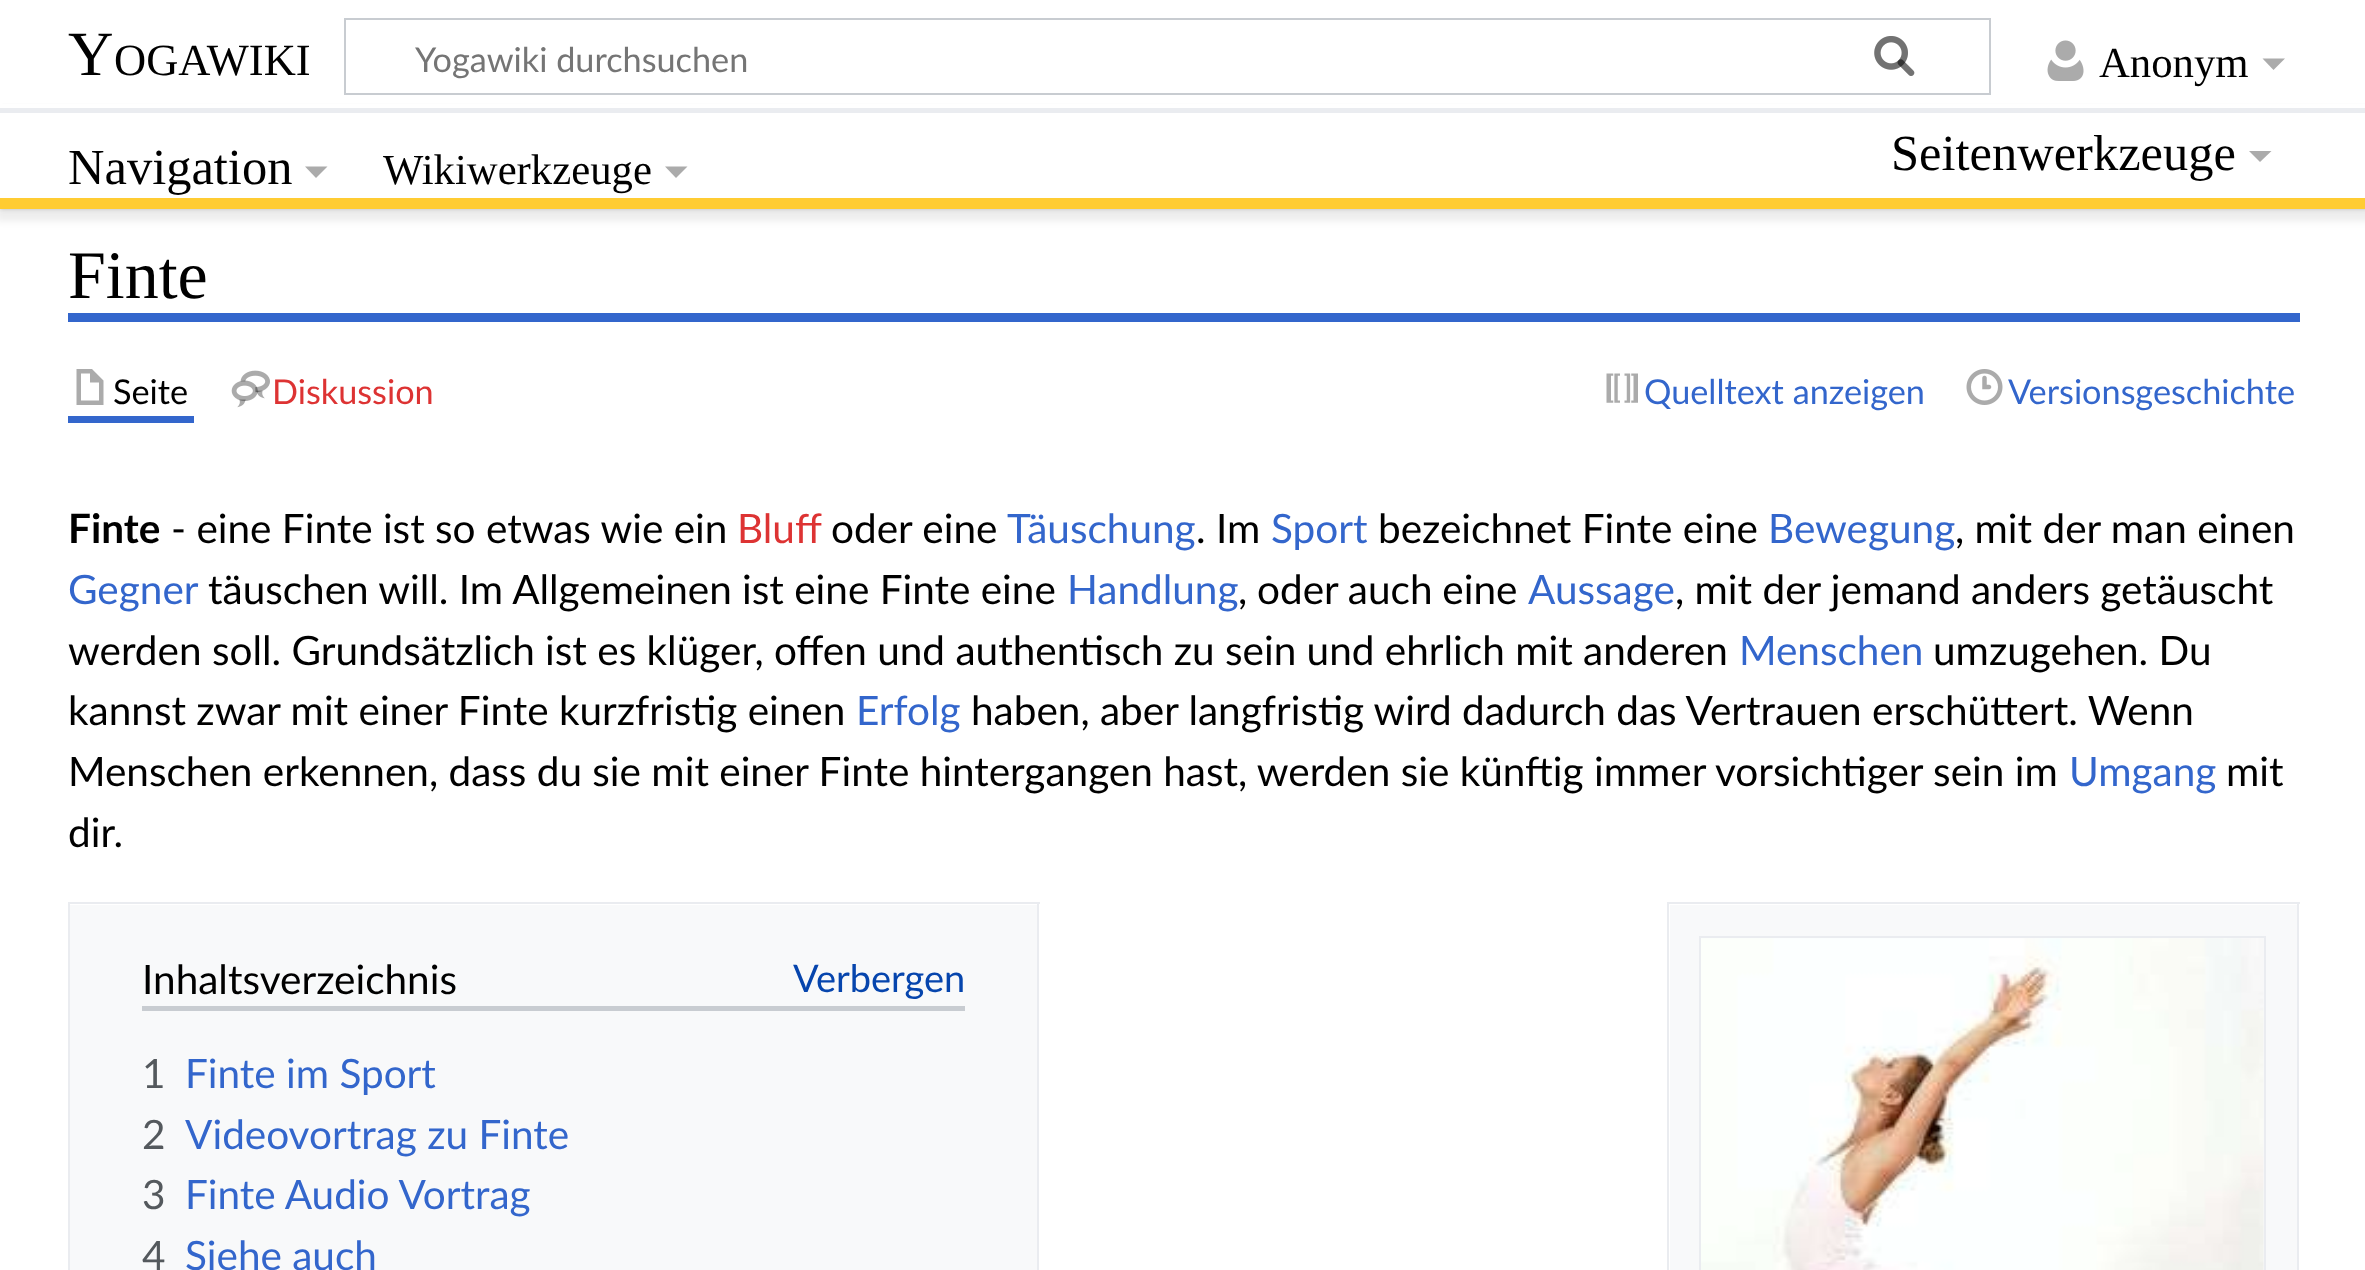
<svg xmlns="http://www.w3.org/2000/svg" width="2365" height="1270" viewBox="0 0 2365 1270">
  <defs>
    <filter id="blur1" x="-50%" y="-200%" width="200%" height="500%"><feGaussianBlur stdDeviation="2"/></filter>
    <filter id="blur2" x="-50%" y="-200%" width="200%" height="500%"><feGaussianBlur stdDeviation="3.5"/></filter>
  </defs>
  <rect width="100%" height="100%" fill="#ffffff"/>
  <rect x="0" y="108" width="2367" height="101" fill="#000000" fill-opacity="0.2" filter="url(#blur1)"/>
  <rect x="-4" y="110" width="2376" height="111" fill="#000000" fill-opacity="0.07" filter="url(#blur2)"/>
  <rect x="0" y="104" width="2365" height="4" fill="#ffffff"/>
  <text x="68" y="75" font-family="Liberation Serif" font-size="63" fill="#000000">Y</text>
  <text x="114" y="75" font-family="Liberation Serif" font-size="44.5" fill="#000000">OGAWIKI</text>
  <rect x="345" y="19" width="1645" height="75" fill="none" stroke="#c8ccd1" stroke-width="2"/>
  <image x="1874" y="36" width="41" height="40" href="img1.png"/>
  <text x="415" y="72" font-family="Lato" font-size="34.25" fill="#757575">Yogawiki durchsuchen</text>
  <image x="1874" y="36" width="41" height="40" href="img2.png"/>
  <image x="2047" y="40" width="37" height="41" href="img3.png"/>
  <text x="2099" y="77" font-family="Liberation Serif" font-size="42.75" fill="#000000">Anonym</text>
  <path d="M2285 58.5L2273.5 70L2262.5 58.5Z" fill="#ababab"/>
  <rect x="0" y="113" width="2365" height="85" fill="#ffffff"/>
  <rect x="0" y="108" width="2365" height="5" fill="#eaecf0"/>
  <rect x="0" y="198" width="2365" height="11" fill="#ffcc32"/>
  <text x="68" y="184" font-family="Liberation Serif" font-size="50.5" fill="#000000">Navigation</text>
  <path d="M327.5 166.5L316 178L305 166.5Z" fill="#ababab"/>
  <text x="383" y="184" font-family="Liberation Serif" font-size="42.75" fill="#000000">Wikiwerkzeuge</text>
  <path d="M687.5 166.5L676 178L665 166.5Z" fill="#ababab"/>
  <text x="1891" y="170" font-family="Liberation Serif" font-size="50.5" fill="#000000">Seitenwerkzeuge</text>
  <path d="M2271.5 151L2260 162L2249 151Z" fill="#ababab"/>
  <rect x="68" y="313" width="2232" height="9" fill="#3366cc"/>
  <text x="68" y="298" font-family="Liberation Serif" font-size="68" fill="#000000">Finte</text>
  <rect x="68" y="416" width="126" height="7" fill="#3366cc"/>
  <path d="M76.5 369V405H103.5V380.5L92 369ZM81 373.5H90V382.5H99V400.5H81Z" fill="#ababab"/>
  <text x="113" y="404" font-family="Lato" font-size="34.25" fill="#000000">Seite</text>
  <image x="231" y="370" width="39" height="38" href="img4.png"/>
  <text x="272" y="404" font-family="Lato" font-size="34.25" fill="#dd3333">Diskussion</text>
  <image x="1606" y="373" width="32" height="30" href="img5.png"/>
  <text x="1644" y="404" font-family="Lato" font-size="34.25" fill="#3366cc">Quelltext anzeigen</text>
  <image x="1966" y="369" width="37" height="36" href="img6.png"/>
  <text x="2008" y="404" font-family="Lato" font-size="34.25" fill="#3366cc">Versionsgeschichte</text>
  <text x="68" y="543" font-family="Lato" font-size="40.5" font-weight="bold" fill="#000000">Finte</text>
  <text x="171" y="543" font-family="Lato" font-size="40.5" fill="#000000">- eine Finte ist so etwas wie ein</text>
  <text x="737" y="543" font-family="Lato" font-size="40.5" fill="#dd3333">Bluff</text>
  <text x="831" y="543" font-family="Lato" font-size="40.5" fill="#000000">oder eine</text>
  <text x="1007" y="543" font-family="Lato" font-size="40.5" fill="#3366cc">Täuschung</text>
  <text x="1196" y="543" font-family="Lato" font-size="40.5" fill="#000000">. Im</text>
  <text x="1271" y="543" font-family="Lato" font-size="40.5" fill="#3366cc">Sport</text>
  <text x="1378" y="543" font-family="Lato" font-size="40.5" fill="#000000">bezeichnet Finte eine</text>
  <text x="1768" y="543" font-family="Lato" font-size="40.5" fill="#3366cc">Bewegung</text>
  <text x="1955" y="543" font-family="Lato" font-size="40.5" fill="#000000">, mit der man einen</text>
  <text x="68" y="604" font-family="Lato" font-size="40.5" fill="#3366cc">Gegner</text>
  <text x="208" y="604" font-family="Lato" font-size="40.5" fill="#000000">täuschen will. Im Allgemeinen ist eine Finte eine</text>
  <text x="1067" y="604" font-family="Lato" font-size="40.5" fill="#3366cc">Handlung</text>
  <text x="1238" y="604" word-spacing="-0.5" font-family="Lato" font-size="40.5" fill="#000000">, oder auch eine</text>
  <text x="1528" y="604" font-family="Lato" font-size="40.5" fill="#3366cc">Aussage</text>
  <text x="1675" y="604" font-family="Lato" font-size="40.5" fill="#000000">, mit der jemand anders getäuscht</text>
  <text x="68" y="665" font-family="Lato" font-size="40.5" fill="#000000">werden soll. Grundsätzlich ist es klüger, offen und authentisch zu sein und ehrlich mit anderen</text>
  <text x="1739" y="665" font-family="Lato" font-size="40.5" fill="#3366cc">Menschen</text>
  <text x="1933" y="665" font-family="Lato" font-size="40.5" fill="#000000">umzugehen. Du</text>
  <text x="68" y="725" font-family="Lato" font-size="40.5" fill="#000000">kannst zwar mit einer Finte kurzfristig einen</text>
  <text x="856" y="725" font-family="Lato" font-size="40.5" fill="#3366cc">Erfolg</text>
  <text x="971" y="725" font-family="Lato" font-size="40.5" fill="#000000">haben, aber langfristig wird dadurch das Vertrauen erschüttert. Wenn</text>
  <text x="68" y="786" font-family="Lato" font-size="40.5" fill="#000000">Menschen erkennen, dass du sie mit einer Finte hintergangen hast, werden sie künftig immer vorsichtiger sein im</text>
  <text x="2069" y="786" font-family="Lato" font-size="40.5" fill="#3366cc">Umgang</text>
  <text x="2226" y="786" font-family="Lato" font-size="40.5" fill="#000000">mit</text>
  <text x="68" y="847" font-family="Lato" font-size="40.5" fill="#000000">dir.</text>
  <rect x="70" y="905" width="967" height="365" fill="#f8f9fa"/>
  <rect x="68" y="902" width="972" height="2" fill="#eaecf0"/>
  <rect x="1037" y="902" width="2" height="368" fill="#eaecf0"/>
  <rect x="68" y="902" width="2" height="368" fill="#eaecf0"/>
  <rect x="142" y="1006" width="823" height="5" fill="#c8ccd1"/>
  <text x="142" y="994" font-family="Lato" font-size="40.5" fill="#000000">Inhaltsverzeichnis</text>
  <text x="793" y="992" font-family="Lato" font-size="38" fill="#0645ad">Verbergen</text>
  <text x="142" y="1088" font-family="Lato" font-size="40.5" fill="#54595d">1</text>
  <text x="185" y="1088" font-family="Lato" font-size="40.5" fill="#3366cc">Finte im Sport</text>
  <text x="142" y="1149" font-family="Lato" font-size="40.5" fill="#54595d">2</text>
  <text x="185" y="1149" font-family="Lato" font-size="40.5" fill="#3366cc">Videovortrag zu Finte</text>
  <text x="142" y="1209" font-family="Lato" font-size="40.5" fill="#54595d">3</text>
  <text x="185" y="1209" font-family="Lato" font-size="40.5" fill="#3366cc">Finte Audio Vortrag</text>
  <text x="142" y="1270" font-family="Lato" font-size="40.5" fill="#54595d">4</text>
  <text x="185" y="1270" font-family="Lato" font-size="40.5" fill="#3366cc">Siehe auch</text>
  <rect x="1670" y="905" width="627" height="365" fill="#f8f9fa"/>
  <rect x="1667" y="902" width="633" height="2" fill="#eaecf0"/>
  <rect x="2297" y="902" width="2" height="368" fill="#eaecf0"/>
  <rect x="1667" y="902" width="2" height="368" fill="#eaecf0"/>
  <rect x="1700" y="937" width="565" height="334" fill="none" stroke="#eaecf0" stroke-width="2"/>
  <image x="1701" y="938" width="563" height="332" href="img7.png"/>
</svg>
